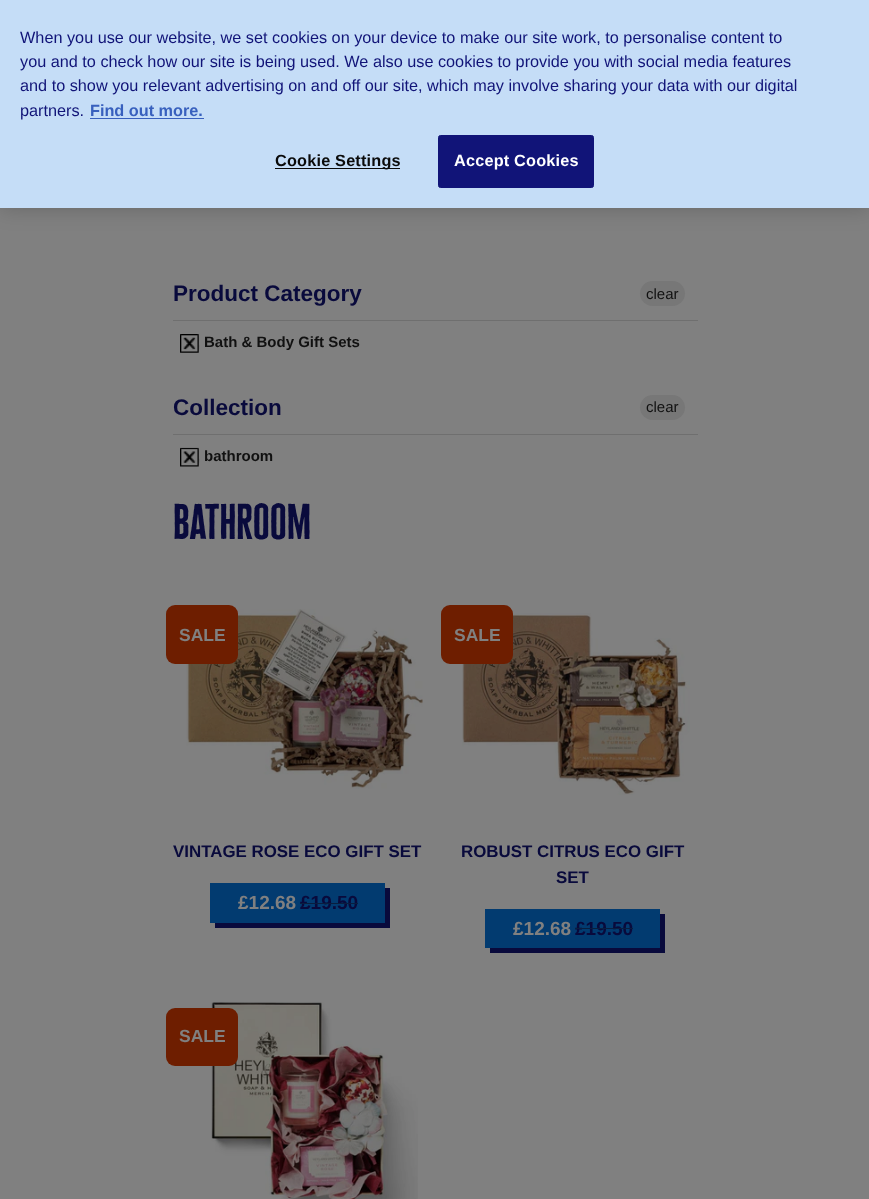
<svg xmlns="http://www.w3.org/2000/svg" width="869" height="1199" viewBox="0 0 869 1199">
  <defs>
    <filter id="blur1" x="-50%" y="-200%" width="200%" height="500%"><feGaussianBlur stdDeviation="11"/></filter>
  </defs>
  <rect width="100%" height="100%" fill="#808080"/>
  <rect x="0" y="0" width="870" height="208" fill="#000000" fill-opacity="0.2" filter="url(#blur1)"/>
  <rect x="0" y="0" width="869" height="208" fill="#c5ddf7"/>
  <text x="20" y="43" font-family="Liberation Sans" font-size="16.25" fill="#111478">When you use our website, we set cookies on your device to make our site work, to personalise content to</text>
  <text x="20" y="67" font-family="Liberation Sans" font-size="16.25" fill="#111478">you and to check how our site is being used. We also use cookies to provide you with social media features</text>
  <text x="20" y="91" font-family="Liberation Sans" font-size="16.25" fill="#111478">and to show you relevant advertising on and off our site, which may involve sharing your data with our digital</text>
  <text x="20" y="116" font-family="Liberation Sans" font-size="16.25" fill="#111478">partners.</text>
  <text x="90" y="116" font-family="Liberation Sans" font-size="16.25" font-weight="bold" fill="#3860be">Find out more.</text>
  <rect x="90" y="118" width="114" height="1" fill="#3860be"/>
  <rect x="275" y="168" width="125" height="1" fill="#0a0a0a"/>
  <text x="275" y="166" font-family="Liberation Sans" font-size="16.25" font-weight="bold" letter-spacing="0.2" fill="#0a0a0a">Cookie Settings</text>
  <rect x="438.5" y="135.5" width="155" height="52" rx="2" fill="#111478" stroke="#111478"/>
  <text x="454" y="166" font-family="Liberation Sans" font-size="16.25" font-weight="bold" letter-spacing="0.2" fill="#ffffff">Accept Cookies</text>
  <rect x="173" y="320" width="525" height="1" fill="#6f6f6f"/>
  <text x="173" y="301" font-family="Liberation Sans" font-size="22.5" font-weight="bold" fill="#090a3c">Product Category</text>
  <rect x="640" y="281" width="45" height="25" rx="12.5" fill="#777777"/>
  <text x="646" y="299" font-family="Liberation Sans" font-size="15" fill="#111111">clear</text>
  <image x="180" y="334" width="20" height="19" href="img1.png"/>
  <text x="204" y="347" font-family="Liberation Sans" font-size="15" font-weight="bold" fill="#111111">Bath &amp; Body Gift Sets</text>
  <rect x="173" y="434" width="525" height="1" fill="#6f6f6f"/>
  <text x="173" y="415" font-family="Liberation Sans" font-size="22.5" font-weight="bold" fill="#090a3c">Collection</text>
  <rect x="640" y="395" width="45" height="25" rx="12.5" fill="#777777"/>
  <text x="646" y="412" font-family="Liberation Sans" font-size="15" fill="#111111">clear</text>
  <image x="180" y="447" width="20" height="20" href="img2.png"/>
  <text x="204" y="461" font-family="Liberation Sans" font-size="15" font-weight="bold" fill="#111111">bathroom</text>
  <text x="173" y="539" font-family="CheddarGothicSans" font-size="41" fill="#090a3c">bathroom</text>
  <image x="186" y="609" width="237" height="180" href="img3.png"/>
  <rect x="166" y="605" width="72" height="59" rx="9" fill="#6e1e00"/>
  <text x="179" y="641" font-family="Liberation Sans" font-size="17.5" font-weight="bold" fill="#808080">SALE</text>
  <text x="173" y="857" font-family="Liberation Sans" font-size="16.9" font-weight="bold" fill="#090a3c">VINTAGE ROSE ECO GIFT SET</text>
  <path d="M215 922V928H390V888H385V922Z" fill="#090a3c"/>
  <rect x="210" y="883" width="175" height="40" fill="#023b70"/>
  <text x="238" y="909" font-family="Liberation Sans" font-size="19" font-weight="bold" fill="#808080">£12.68</text>
  <text x="300" y="909" font-family="Liberation Sans" font-size="19" font-weight="bold" fill="#090a3c">£19.50</text>
  <rect x="300" y="903" width="58" height="1" fill="#081e40"/>
  <image x="462" y="613" width="228" height="182" href="img4.png"/>
  <rect x="441" y="605" width="72" height="59" rx="9" fill="#6e1e00"/>
  <text x="454" y="641" font-family="Liberation Sans" font-size="17.5" font-weight="bold" fill="#808080">SALE</text>
  <text x="461" y="857" font-family="Liberation Sans" font-size="16.9" font-weight="bold" fill="#090a3c">ROBUST CITRUS ECO GIFT</text>
  <text x="556" y="883" font-family="Liberation Sans" font-size="16.9" font-weight="bold" fill="#090a3c">SET</text>
  <path d="M490 948V953H665V914H660V948Z" fill="#090a3c"/>
  <rect x="485" y="909" width="175" height="39" fill="#023b70"/>
  <text x="513" y="935" font-family="Liberation Sans" font-size="19" font-weight="bold" fill="#808080">£12.68</text>
  <text x="575" y="935" font-family="Liberation Sans" font-size="19" font-weight="bold" fill="#090a3c">£19.50</text>
  <rect x="575" y="928" width="58" height="1" fill="#081e40"/>
  <image x="211" y="1002" width="207" height="197" href="img5.png"/>
  <rect x="166" y="1008" width="72" height="58" rx="9" fill="#6e1e00"/>
  <text x="179" y="1042" font-family="Liberation Sans" font-size="17.5" font-weight="bold" fill="#808080">SALE</text>
</svg>
